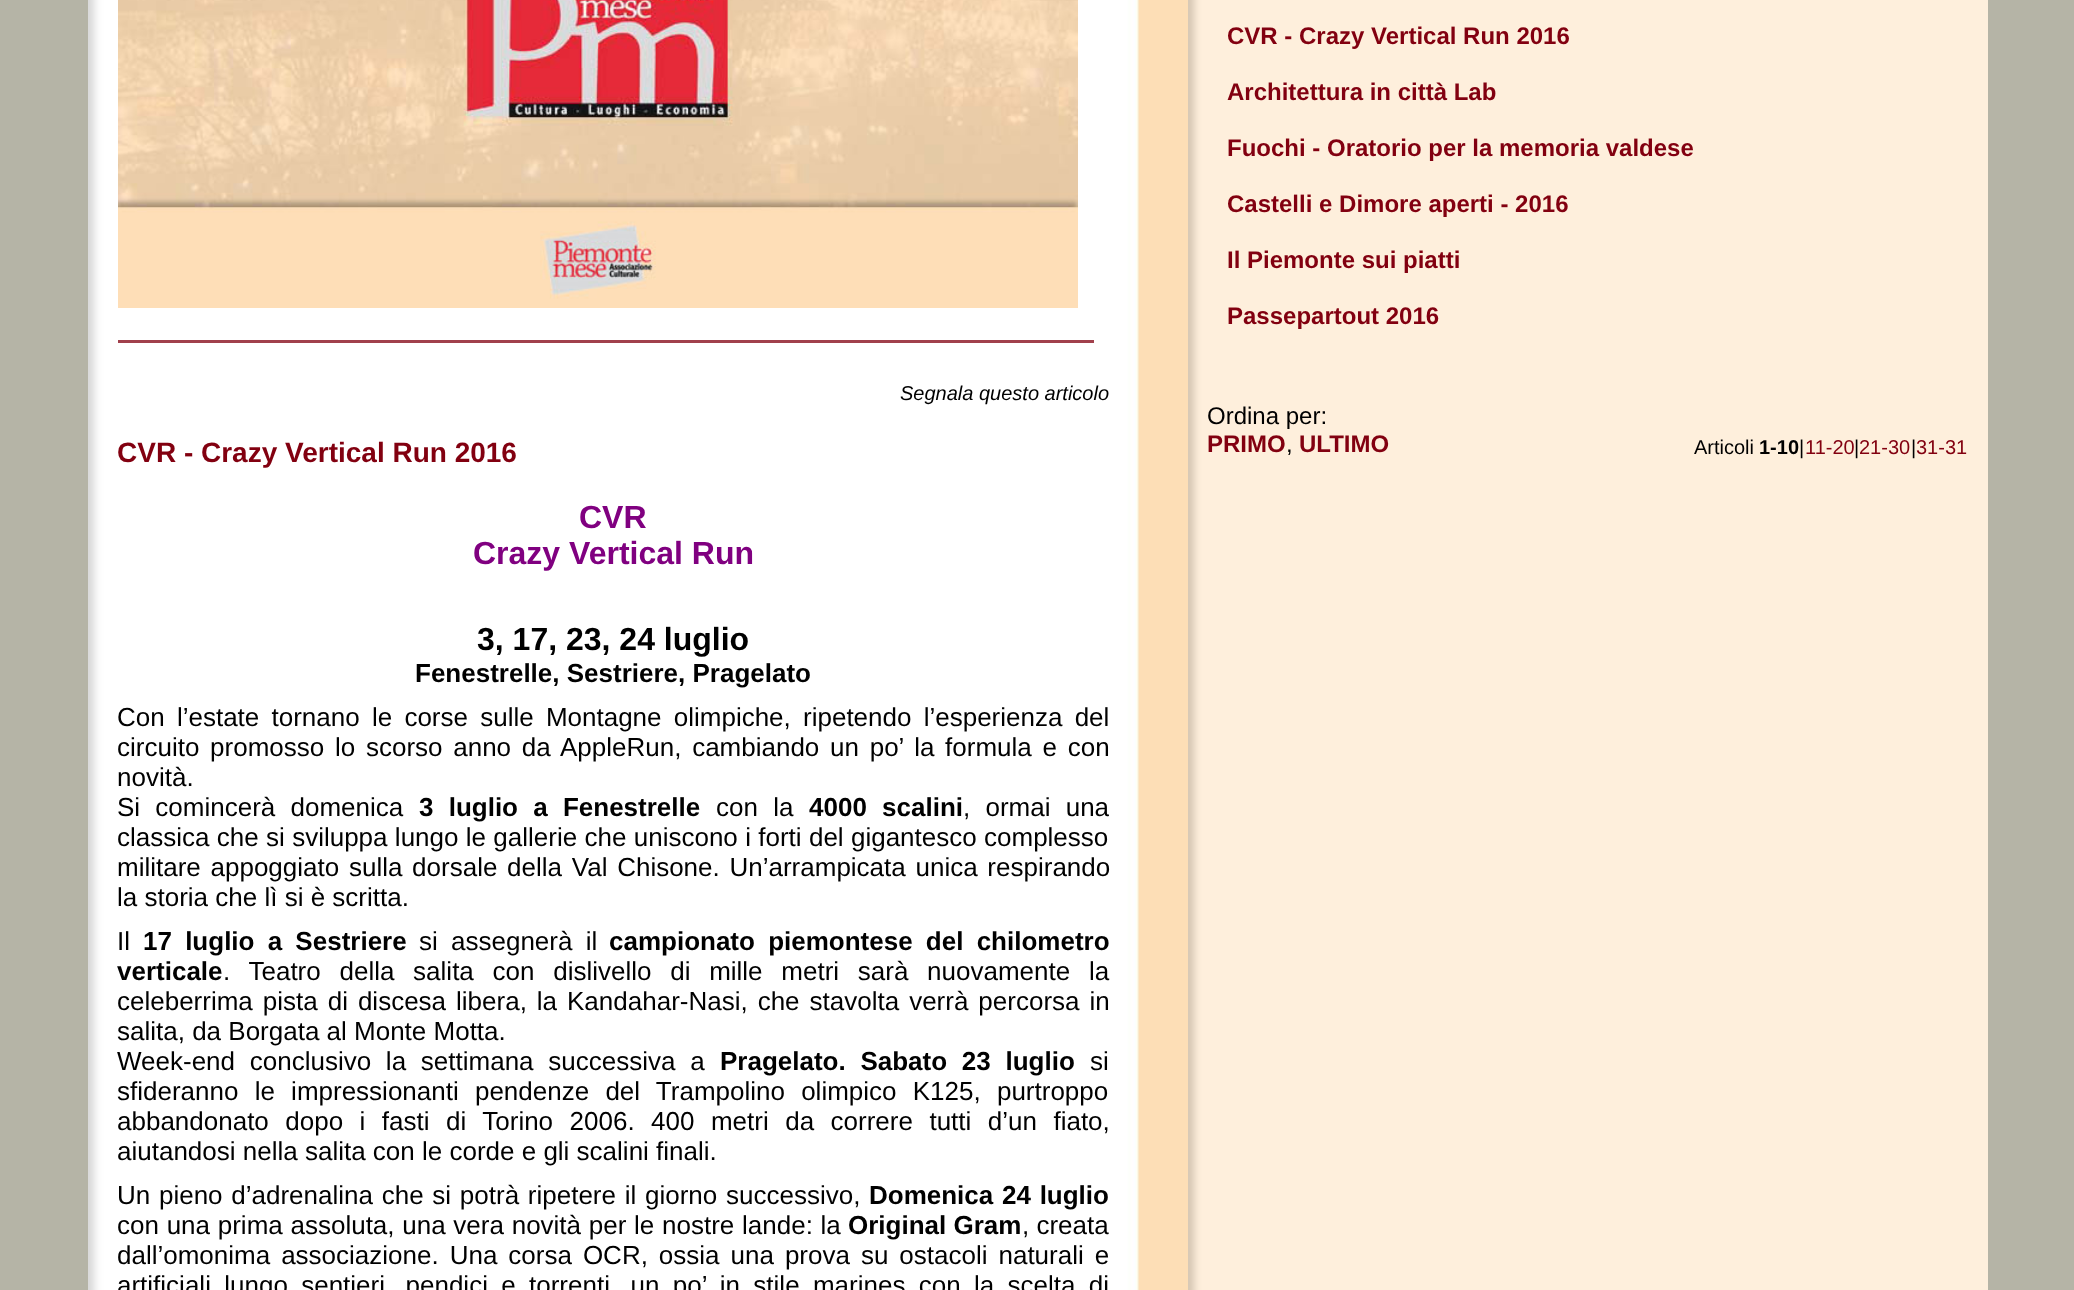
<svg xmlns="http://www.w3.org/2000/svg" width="2074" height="1290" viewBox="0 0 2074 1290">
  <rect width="100%" height="100%" fill="#b5b4a6"/>
  <rect x="1139" y="0" width="49" height="1290" fill="#fddeb6"/>
  <image x="1188" y="0" width="800" height="1290" href="img1.png"/>
  <text x="1227" y="44" font-family="Liberation Sans" font-size="24" font-weight="bold" fill="#820010">CVR - Crazy Vertical Run 2016</text>
  <text x="1227" y="100" font-family="Liberation Sans" font-size="24" font-weight="bold" fill="#820010">Architettura in città Lab</text>
  <text x="1227" y="156" font-family="Liberation Sans" font-size="24" font-weight="bold" fill="#820010">Fuochi - Oratorio per la memoria valdese</text>
  <text x="1227" y="212" font-family="Liberation Sans" font-size="24" font-weight="bold" fill="#820010">Castelli e Dimore aperti - 2016</text>
  <text x="1227" y="268" font-family="Liberation Sans" font-size="24" font-weight="bold" fill="#820010">Il Piemonte sui piatti</text>
  <text x="1227" y="324" font-family="Liberation Sans" font-size="24" font-weight="bold" fill="#820010">Passepartout 2016</text>
  <text x="1207" y="424" font-family="Liberation Sans" font-size="24" fill="#000000">Ordina per:</text>
  <text x="1207" y="452" font-family="Liberation Sans" font-size="24" font-weight="bold" fill="#820010">PRIMO</text>
  <text x="1286" y="452" font-family="Liberation Sans" font-size="24" fill="#000000">,</text>
  <text x="1299" y="452" font-family="Liberation Sans" font-size="24" font-weight="bold" fill="#820010">ULTIMO</text>
  <text x="1694" y="454" font-family="Liberation Sans" font-size="20" fill="#000000">Articoli</text>
  <text x="1759" y="454" font-family="Liberation Sans" font-size="20" font-weight="bold" fill="#000000">1-10</text>
  <text x="1799" y="454" font-family="Liberation Sans" font-size="20" fill="#000000">|</text>
  <text x="1805" y="454" font-family="Liberation Sans" font-size="20" fill="#820010">11-20</text>
  <text x="1854" y="454" font-family="Liberation Sans" font-size="20" fill="#000000">|</text>
  <text x="1859" y="454" font-family="Liberation Sans" font-size="20" fill="#820010">21-30</text>
  <text x="1911" y="454" font-family="Liberation Sans" font-size="20" fill="#000000">|</text>
  <text x="1916" y="454" font-family="Liberation Sans" font-size="20" fill="#820010">31-31</text>
  <image x="88" y="0" width="1051" height="1290" href="img2.png"/>
  <image x="118" y="0" width="960" height="308" href="img3.png"/>
  <rect x="118" y="340" width="976" height="3" fill="#a1404c"/>
  <text x="900" y="400" font-family="Liberation Sans" font-size="20" font-style="italic" fill="#000000">Segnala questo articolo</text>
  <text x="117" y="462" font-family="Liberation Sans" font-size="28" font-weight="bold" fill="#820010">CVR - Crazy Vertical Run 2016</text>
  <text x="579" y="528" font-family="Liberation Sans" font-size="32" font-weight="bold" fill="#800080">CVR</text>
  <text x="473" y="564" font-family="Liberation Sans" font-size="32" font-weight="bold" fill="#800080">Crazy Vertical Run</text>
  <text x="477" y="650" font-family="Liberation Sans" font-size="32" font-weight="bold" fill="#000000">3, 17, 23, 24 luglio</text>
  <text x="415" y="682" font-family="Liberation Sans" font-size="26" font-weight="bold" fill="#000000">Fenestrelle, Sestriere, Pragelato</text>
  <text x="117" y="726" word-spacing="5" font-family="Liberation Sans" font-size="26" fill="#000000">Con l’estate tornano le corse sulle Montagne olimpiche, ripetendo l’esperienza del</text>
  <text x="117" y="756" word-spacing="3.5" font-family="Liberation Sans" font-size="26" fill="#000000">circuito promosso lo scorso anno da AppleRun, cambiando un po’ la formula e con</text>
  <text x="117" y="786" font-family="Liberation Sans" font-size="26" fill="#000000">novità.</text>
  <text x="117" y="816" word-spacing="8" font-family="Liberation Sans" font-size="26" fill="#000000">Si comincerà domenica</text>
  <text x="419" y="816" word-spacing="8" font-family="Liberation Sans" font-size="26" font-weight="bold" fill="#000000">3 luglio a Fenestrelle</text>
  <text x="716" y="816" word-spacing="8" font-family="Liberation Sans" font-size="26" fill="#000000">con la</text>
  <text x="809" y="816" word-spacing="8" font-family="Liberation Sans" font-size="26" font-weight="bold" fill="#000000">4000 scalini</text>
  <text x="963" y="816" word-spacing="8" font-family="Liberation Sans" font-size="26" fill="#000000">, ormai una</text>
  <text x="117" y="846" word-spacing="0.1" font-family="Liberation Sans" font-size="26" fill="#000000">classica che si sviluppa lungo le gallerie che uniscono i forti del gigantesco complesso</text>
  <text x="117" y="876" word-spacing="2.5" font-family="Liberation Sans" font-size="26" fill="#000000">militare appoggiato sulla dorsale della Val Chisone. Un’arrampicata unica respirando</text>
  <text x="117" y="906" font-family="Liberation Sans" font-size="26" fill="#000000">la storia che lì si è scritta.</text>
  <text x="117" y="950" font-family="Liberation Sans" font-size="26" fill="#000000">Il</text>
  <text x="143" y="950" word-spacing="6" font-family="Liberation Sans" font-size="26" font-weight="bold" fill="#000000">17 luglio a Sestriere</text>
  <text x="419" y="950" word-spacing="6" font-family="Liberation Sans" font-size="26" fill="#000000">si assegnerà il</text>
  <text x="609" y="950" word-spacing="6" font-family="Liberation Sans" font-size="26" font-weight="bold" fill="#000000">campionato piemontese del chilometro</text>
  <text x="117" y="980" font-family="Liberation Sans" font-size="26" font-weight="bold" fill="#000000">verticale</text>
  <text x="223" y="980" word-spacing="11.5" font-family="Liberation Sans" font-size="26" fill="#000000">. Teatro della salita con dislivello di mille metri sarà nuovamente la</text>
  <text x="117" y="1010" word-spacing="2.75" font-family="Liberation Sans" font-size="26" fill="#000000">celeberrima pista di discesa libera, la Kandahar-Nasi, che stavolta verrà percorsa in</text>
  <text x="117" y="1040" font-family="Liberation Sans" font-size="26" fill="#000000">salita, da Borgata al Monte Motta.</text>
  <text x="117" y="1070" word-spacing="7.5" font-family="Liberation Sans" font-size="26" fill="#000000">Week-end conclusivo la settimana successiva a</text>
  <text x="720" y="1070" word-spacing="7.5" font-family="Liberation Sans" font-size="26" font-weight="bold" fill="#000000">Pragelato. Sabato 23 luglio</text>
  <text x="1090" y="1070" font-family="Liberation Sans" font-size="26" fill="#000000">si</text>
  <text x="117" y="1100" word-spacing="9" font-family="Liberation Sans" font-size="26" fill="#000000">sfideranno le impressionanti pendenze del Trampolino olimpico K125, purtroppo</text>
  <text x="117" y="1130" word-spacing="9.25" font-family="Liberation Sans" font-size="26" fill="#000000">abbandonato dopo i fasti di Torino 2006. 400 metri da correre tutti d’un fiato,</text>
  <text x="117" y="1160" font-family="Liberation Sans" font-size="26" fill="#000000">aiutandosi nella salita con le corde e gli scalini finali.</text>
  <text x="117" y="1204" word-spacing="1.5" font-family="Liberation Sans" font-size="26" fill="#000000">Un pieno d’adrenalina che si potrà ripetere il giorno successivo,</text>
  <text x="869" y="1204" word-spacing="1.5" font-family="Liberation Sans" font-size="26" font-weight="bold" fill="#000000">Domenica 24 luglio</text>
  <text x="117" y="1234" word-spacing="0.5" font-family="Liberation Sans" font-size="26" fill="#000000">con una prima assoluta, una vera novità per le nostre lande: la</text>
  <text x="848" y="1234" font-family="Liberation Sans" font-size="26" font-weight="bold" fill="#000000">Original Gram</text>
  <text x="1022" y="1234" font-family="Liberation Sans" font-size="26" fill="#000000">, creata</text>
  <text x="117" y="1264" word-spacing="3.75" font-family="Liberation Sans" font-size="26" fill="#000000">dall’omonima associazione. Una corsa OCR, ossia una prova su ostacoli naturali e</text>
  <text x="117" y="1294" word-spacing="6.1" font-family="Liberation Sans" font-size="26" fill="#000000">artificiali lungo sentieri, pendici e torrenti, un po’ in stile marines con la scelta di</text>
</svg>
